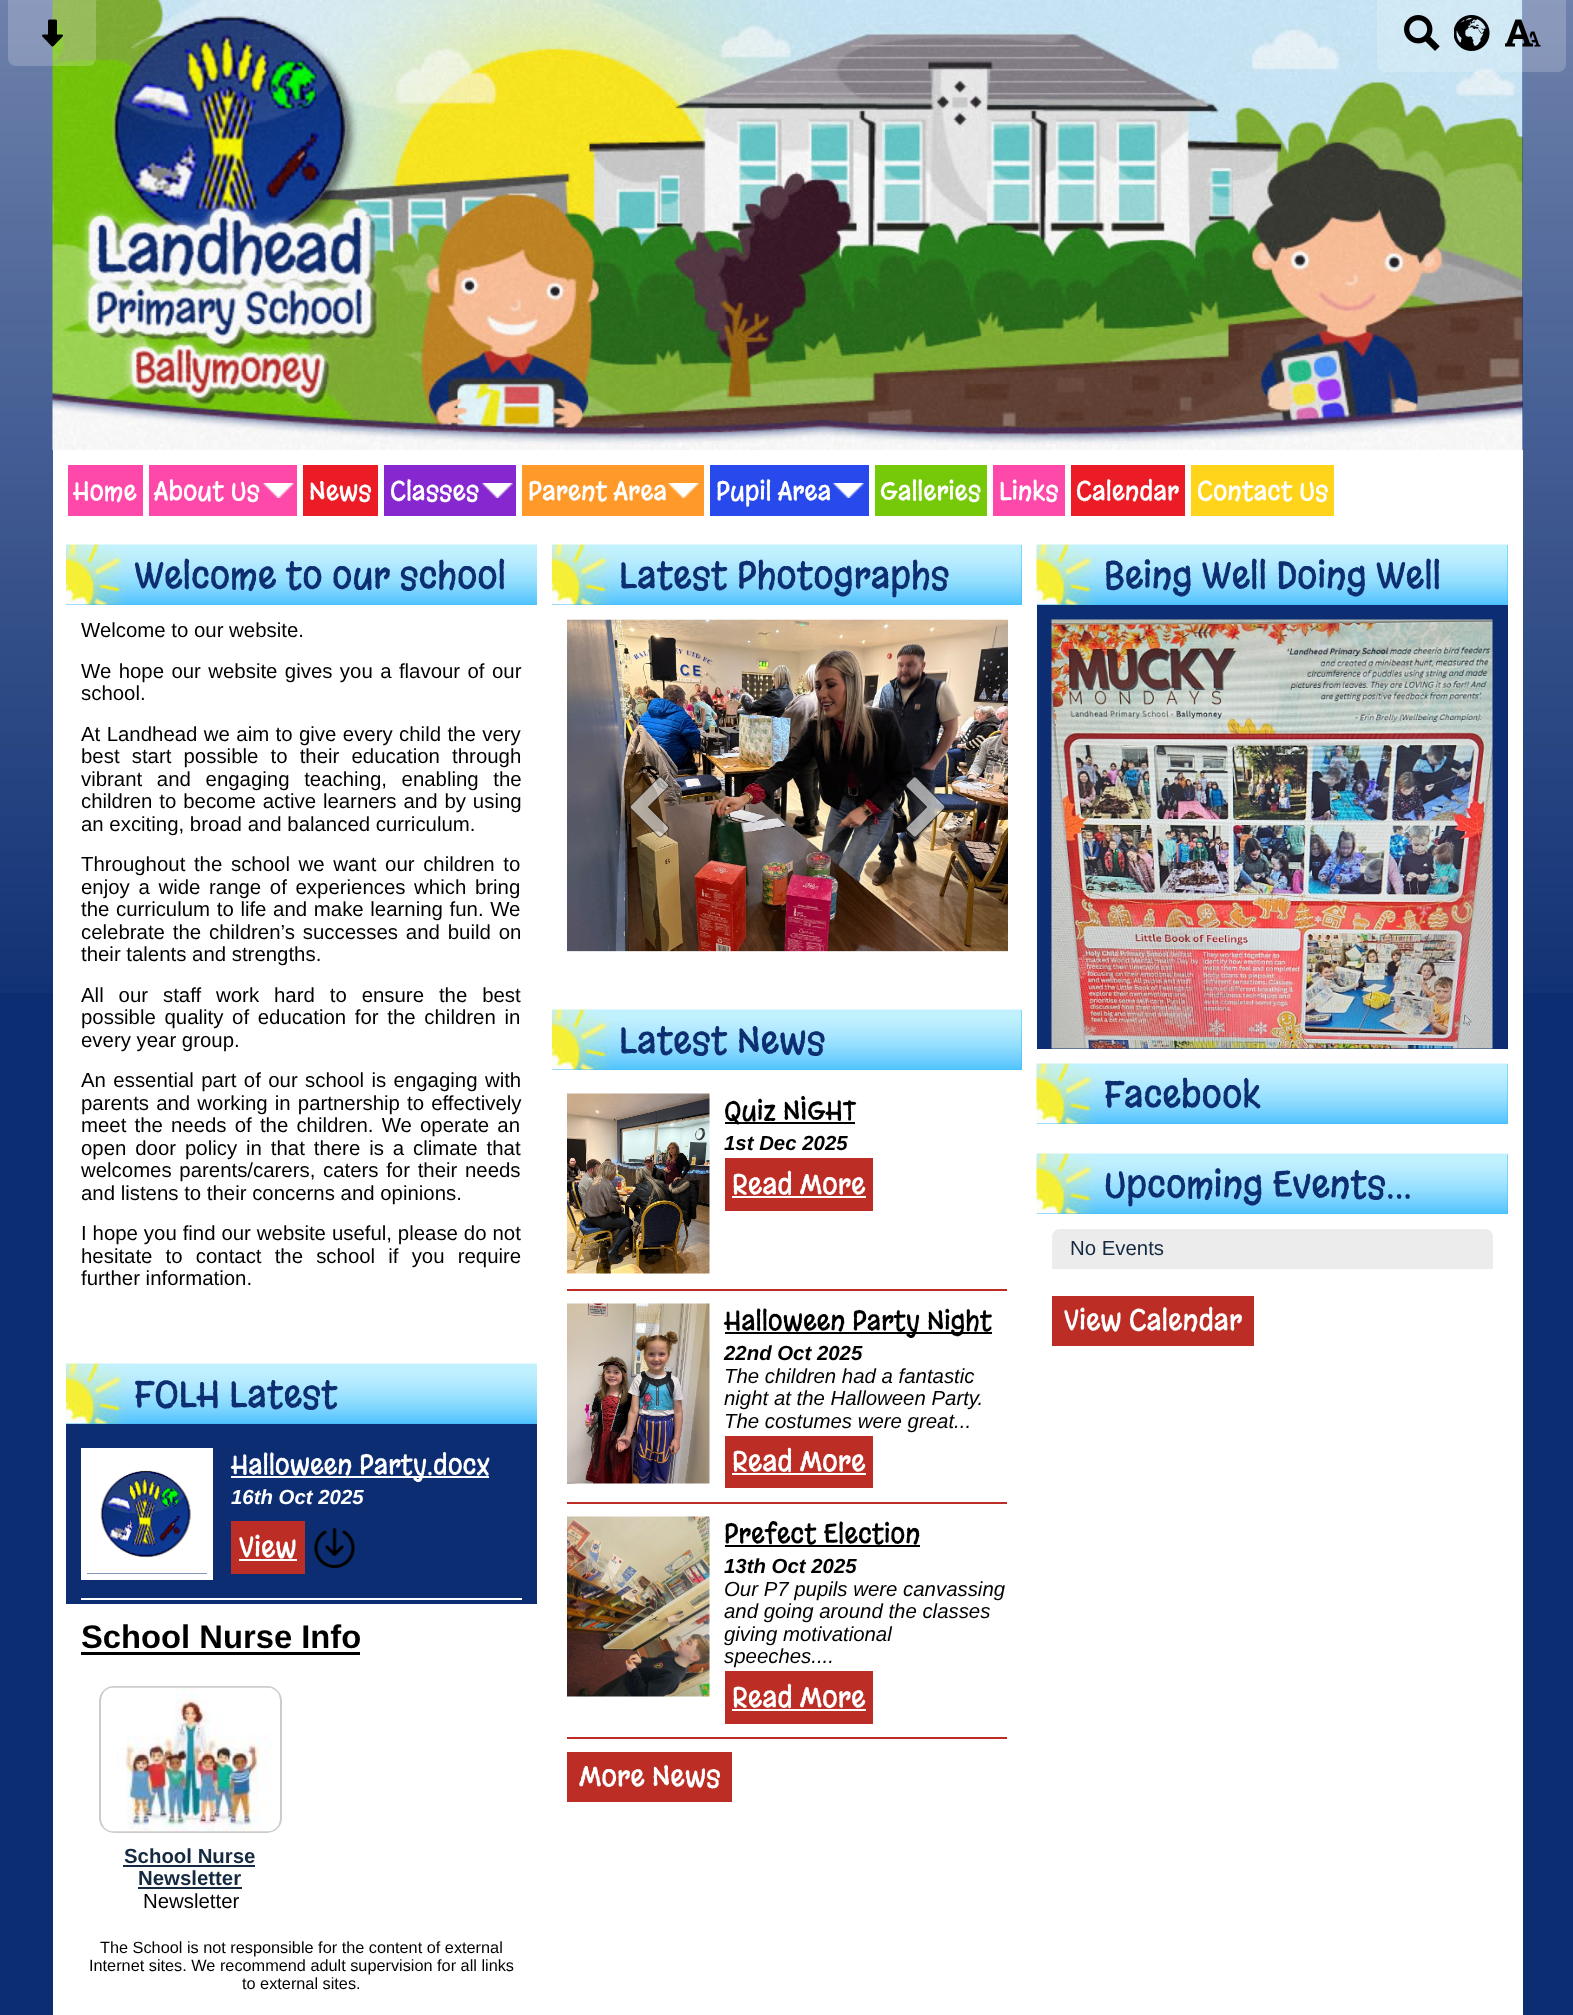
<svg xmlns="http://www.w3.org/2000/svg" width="1573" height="2015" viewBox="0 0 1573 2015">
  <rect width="100%" height="100%" fill="#0c2d72"/>
  <image x="0" y="0" width="1573" height="993" href="img1.png"/>
  <rect x="1522" y="0" width="1" height="450" fill="#0c3585"/>
  <image x="52" y="0" width="1471" height="450" href="img6.png"/>
  <path d="M8 0H96V58C96 62.5 92.5 66 88 66H16C11.5 66 8 62.5 8 58Z" fill="#ffffff" fill-opacity="0.2"/>
  <image x="42" y="19" width="21" height="28" href="img2.png"/>
  <path d="M1377 0H1566V64C1566 68.5 1562.5 72 1558 72H1385C1380.5 72 1377 68.5 1377 64Z" fill="#ffffff" fill-opacity="0.2"/>
  <image x="1404" y="15" width="36" height="36" href="img3.png"/>
  <image x="1454" y="15" width="36" height="36" href="img4.png"/>
  <image x="1505" y="19" width="36" height="28" href="img5.png"/>
  <rect x="53" y="450" width="1470" height="1565" fill="#ffffff"/>
  <rect x="68" y="465" width="75" height="51" fill="#fe49aa"/>
  <text x="73" y="500" font-family="Margarine" font-size="26" fill="#ffffff">Home</text>
  <rect x="149" y="465" width="148" height="51" fill="#fe49aa"/>
  <image x="262" y="483" width="32" height="15" href="img7.png"/>
  <text x="154" y="500" font-family="Margarine" font-size="26" fill="#ffffff">About Us</text>
  <rect x="303" y="465" width="75" height="51" fill="#eb1c26"/>
  <text x="309" y="500" font-family="Margarine" font-size="26" fill="#ffffff">News</text>
  <rect x="384" y="465" width="132" height="51" fill="#8727cf"/>
  <image x="481" y="483" width="32" height="15" href="img8.png"/>
  <text x="390" y="500" font-family="Margarine" font-size="26" fill="#ffffff">Classes</text>
  <rect x="522" y="465" width="182" height="51" fill="#ff992a"/>
  <image x="667" y="483" width="32" height="15" href="img9.png"/>
  <text x="528" y="500" font-family="Margarine" font-size="26" fill="#ffffff">Parent Area</text>
  <rect x="710" y="465" width="159" height="51" fill="#2849ec"/>
  <image x="832" y="483" width="32" height="15" href="img10.png"/>
  <text x="716" y="500" font-family="Margarine" font-size="26" fill="#ffffff">Pupil Area</text>
  <rect x="875" y="465" width="112" height="51" fill="#76c909"/>
  <text x="880" y="500" font-family="Margarine" font-size="26" fill="#ffffff">Galleries</text>
  <rect x="993" y="465" width="72" height="51" fill="#fe49aa"/>
  <text x="999" y="500" font-family="Margarine" font-size="26" fill="#ffffff">Links</text>
  <rect x="1071" y="465" width="114" height="51" fill="#eb1c26"/>
  <text x="1076" y="500" font-family="Margarine" font-size="26" fill="#ffffff">Calendar</text>
  <rect x="1191" y="465" width="143" height="51" fill="#ffd41a"/>
  <text x="1197" y="500" font-family="Margarine" font-size="26" fill="#ffffff">Contact Us</text>
  <rect x="66" y="604" width="471" height="1" fill="#40bbff"/>
  <image x="66" y="544" width="471" height="61" href="img11.png"/>
  <text x="134" y="588" font-family="Margarine" font-size="36.75" fill="#0d2e71">Welcome to our school</text>
  <text x="81" y="637" font-family="Liberation Sans" font-size="20.4" fill="#000000">Welcome to our website.</text>
  <text x="81" y="678" word-spacing="1.75" font-family="Liberation Sans" font-size="20.4" fill="#000000">We hope our website gives you a flavour of our</text>
  <text x="81" y="700" font-family="Liberation Sans" font-size="20.4" fill="#000000">school.</text>
  <text x="81" y="741" word-spacing="0.75" font-family="Liberation Sans" font-size="20.4" fill="#000000">At Landhead we aim to give every child the very</text>
  <text x="81" y="763" word-spacing="6.5" font-family="Liberation Sans" font-size="20.4" fill="#000000">best start possible to their education through</text>
  <text x="81" y="786" word-spacing="9" font-family="Liberation Sans" font-size="20.4" fill="#000000">vibrant and engaging teaching, enabling the</text>
  <text x="81" y="808" word-spacing="1.25" font-family="Liberation Sans" font-size="20.4" fill="#000000">children to become active learners and by using</text>
  <text x="81" y="831" font-family="Liberation Sans" font-size="20.4" fill="#000000">an exciting, broad and balanced curriculum.</text>
  <text x="81" y="871" word-spacing="3" font-family="Liberation Sans" font-size="20.4" fill="#000000">Throughout the school we want our children to</text>
  <text x="81" y="894" word-spacing="3" font-family="Liberation Sans" font-size="20.4" fill="#000000">enjoy a wide range of experiences which bring</text>
  <text x="81" y="916" word-spacing="1" font-family="Liberation Sans" font-size="20.4" fill="#000000">the curriculum to life and make learning fun. We</text>
  <text x="81" y="939" word-spacing="2.25" font-family="Liberation Sans" font-size="20.4" fill="#000000">celebrate the children’s successes and build on</text>
  <text x="81" y="961" font-family="Liberation Sans" font-size="20.4" fill="#000000">their talents and strengths.</text>
  <text x="81" y="1002" word-spacing="9.25" font-family="Liberation Sans" font-size="20.4" fill="#000000">All our staff work hard to ensure the best</text>
  <text x="81" y="1024" word-spacing="3" font-family="Liberation Sans" font-size="20.4" fill="#000000">possible quality of education for the children in</text>
  <text x="81" y="1047" font-family="Liberation Sans" font-size="20.4" fill="#000000">every year group.</text>
  <text x="81" y="1087" word-spacing="1.75" font-family="Liberation Sans" font-size="20.4" fill="#000000">An essential part of our school is engaging with</text>
  <text x="81" y="1110" word-spacing="1.5" font-family="Liberation Sans" font-size="20.4" fill="#000000">parents and working in partnership to effectively</text>
  <text x="81" y="1132" word-spacing="2.5" font-family="Liberation Sans" font-size="20.4" fill="#000000">meet the needs of the children. We operate an</text>
  <text x="81" y="1155" word-spacing="3.25" font-family="Liberation Sans" font-size="20.4" fill="#000000">open door policy in that there is a climate that</text>
  <text x="81" y="1177" word-spacing="2" font-family="Liberation Sans" font-size="20.4" fill="#000000">welcomes parents/carers, caters for their needs</text>
  <text x="81" y="1200" font-family="Liberation Sans" font-size="20.4" fill="#000000">and listens to their concerns and opinions.</text>
  <text x="81" y="1240" word-spacing="0.25" font-family="Liberation Sans" font-size="20.4" fill="#000000">I hope you find our website useful, please do not</text>
  <text x="81" y="1263" word-spacing="7.5" font-family="Liberation Sans" font-size="20.4" fill="#000000">hesitate to contact the school if you require</text>
  <text x="81" y="1285" font-family="Liberation Sans" font-size="20.4" fill="#000000">further information.</text>
  <rect x="66" y="1424" width="471" height="180" fill="#0c2d72"/>
  <rect x="66" y="1423" width="471" height="1" fill="#40bbff"/>
  <image x="66" y="1363" width="471" height="61" href="img11.png"/>
  <text x="134" y="1407" font-family="Margarine" font-size="36.75" fill="#0d2e71">FOLH Latest</text>
  <rect x="81" y="1598" width="441" height="2" fill="#ffffff"/>
  <rect x="84" y="1451" width="126" height="126" fill="none" stroke="#ffffff" stroke-width="6"/>
  <image x="87" y="1454" width="120" height="120" href="img12.png"/>
  <rect x="231" y="1476" width="258" height="2" fill="#ffffff"/>
  <text x="231" y="1474" font-family="Margarine" font-size="27" fill="#ffffff">Halloween Party.docx</text>
  <text x="231" y="1504" font-family="Liberation Sans" font-size="20.4" font-weight="bold" font-style="italic" fill="#ffffff">16th Oct 2025</text>
  <rect x="231" y="1521" width="74" height="53" fill="#bc2d25"/>
  <text x="239" y="1557" font-family="Margarine" font-size="28.5" fill="#ffffff">View</text>
  <rect x="239" y="1559" width="58" height="2" fill="#ffffff"/>
  <image x="314" y="1528" width="41" height="40" href="img13.png"/>
  <text x="81" y="1648" font-family="Liberation Sans" font-size="32.75" font-weight="bold" fill="#000000">School Nurse Info</text>
  <rect x="81" y="1652" width="279" height="3" fill="#000000"/>
  <rect x="100" y="1687" width="181" height="145" rx="14" fill="none" stroke="#cccccc" stroke-width="2"/>
  <image x="103" y="1687" width="176" height="145" href="img14.png"/>
  <text x="124" y="1863" font-family="Liberation Sans" font-size="20.4" font-weight="bold" fill="#152941">School Nurse</text>
  <rect x="123" y="1865" width="132" height="2" fill="#152941"/>
  <text x="138" y="1885" font-family="Liberation Sans" font-size="20.4" font-weight="bold" fill="#152941">Newsletter</text>
  <rect x="138" y="1887" width="104" height="2" fill="#152941"/>
  <text x="143" y="1908" font-family="Liberation Sans" font-size="20.4" fill="#000000">Newsletter</text>
  <text x="100" y="1953" font-family="Liberation Sans" font-size="16.3" fill="#000000">The School is not responsible for the content of external</text>
  <text x="89" y="1971" font-family="Liberation Sans" font-size="16.3" fill="#000000">Internet sites. We recommend adult supervision for all links</text>
  <text x="242" y="1989" font-family="Liberation Sans" font-size="16.3" fill="#000000">to external sites.</text>
  <rect x="552" y="545" width="470" height="60" fill="#40bbff"/>
  <image x="552" y="544" width="470" height="61" href="img15.png"/>
  <text x="619" y="588" font-family="Margarine" font-size="36.75" fill="#0d2e71">Latest Photographs</text>
  <image x="567" y="619" width="441" height="333" href="img16.png"/>
  <image x="630" y="776" width="40" height="62" href="img17.png"/>
  <image x="906" y="776" width="40" height="62" href="img18.png"/>
  <rect x="552" y="1010" width="470" height="60" fill="#40bbff"/>
  <image x="552" y="1009" width="470" height="61" href="img15.png"/>
  <text x="619" y="1053" font-family="Margarine" font-size="36.75" fill="#0d2e71">Latest News</text>
  <rect x="567" y="1289" width="440" height="2" fill="#bc2d25"/>
  <image x="567" y="1093" width="143" height="181" href="img19.png"/>
  <rect x="725" y="1122" width="130" height="2" fill="#000000"/>
  <text x="724" y="1120" font-family="Margarine" font-size="27" fill="#000000">Quiz NIGHT</text>
  <text x="724" y="1150" font-family="Liberation Sans" font-size="20.4" font-weight="bold" font-style="italic" fill="#000000">1st Dec 2025</text>
  <rect x="725" y="1158" width="148" height="53" fill="#bc2d25"/>
  <text x="732" y="1194" font-family="Margarine" font-size="28.5" fill="#ffffff">Read More</text>
  <rect x="732" y="1196" width="134" height="2" fill="#ffffff"/>
  <rect x="567" y="1502" width="440" height="2" fill="#bc2d25"/>
  <image x="567" y="1303" width="143" height="181" href="img20.png"/>
  <rect x="725" y="1332" width="267" height="2" fill="#000000"/>
  <text x="724" y="1330" font-family="Margarine" font-size="27" fill="#000000">Halloween Party Night</text>
  <text x="724" y="1360" font-family="Liberation Sans" font-size="20.4" font-weight="bold" font-style="italic" fill="#000000">22nd Oct 2025</text>
  <text x="724" y="1383" font-family="Liberation Sans" font-size="20.4" font-style="italic" fill="#000000">The children had a fantastic</text>
  <text x="724" y="1405" font-family="Liberation Sans" font-size="20.4" font-style="italic" fill="#000000">night at the Halloween Party.</text>
  <text x="724" y="1428" font-family="Liberation Sans" font-size="20.4" font-style="italic" fill="#000000">The costumes were great...</text>
  <rect x="725" y="1436" width="148" height="52" fill="#bc2d25"/>
  <text x="732" y="1471" font-family="Margarine" font-size="28.5" fill="#ffffff">Read More</text>
  <rect x="732" y="1473" width="134" height="2" fill="#ffffff"/>
  <rect x="567" y="1737" width="440" height="2" fill="#bc2d25"/>
  <image x="567" y="1516" width="143" height="181" href="img21.png"/>
  <text x="724" y="1543" font-family="Margarine" font-size="27" fill="#000000">Prefect Election</text>
  <rect x="725" y="1545" width="195" height="2" fill="#000000"/>
  <text x="724" y="1573" font-family="Liberation Sans" font-size="20.4" font-weight="bold" font-style="italic" fill="#000000">13th Oct 2025</text>
  <text x="724" y="1596" font-family="Liberation Sans" font-size="20.4" font-style="italic" fill="#000000">Our P7 pupils were canvassing</text>
  <text x="724" y="1618" font-family="Liberation Sans" font-size="20.4" font-style="italic" fill="#000000">and going around the classes</text>
  <text x="724" y="1641" font-family="Liberation Sans" font-size="20.4" font-style="italic" fill="#000000">giving motivational</text>
  <text x="724" y="1663" font-family="Liberation Sans" font-size="20.4" font-style="italic" fill="#000000">speeches....</text>
  <rect x="725" y="1671" width="148" height="53" fill="#bc2d25"/>
  <text x="732" y="1707" font-family="Margarine" font-size="28.5" fill="#ffffff">Read More</text>
  <rect x="732" y="1709" width="134" height="2" fill="#ffffff"/>
  <rect x="567" y="1752" width="165" height="50" fill="#bc2d25"/>
  <text x="579" y="1786" font-family="Margarine" font-size="28.5" fill="#ffffff">More News</text>
  <rect x="1037" y="605" width="471" height="444" fill="#0c2d72"/>
  <rect x="1037" y="545" width="471" height="60" fill="#40bbff"/>
  <image x="1036" y="544" width="472" height="61" href="img22.png"/>
  <text x="1104" y="588" font-family="Margarine" font-size="36.75" fill="#0d2e71">Being Well Doing Well</text>
  <image x="1051" y="619" width="442" height="430" href="img23.png"/>
  <rect x="1037" y="1064" width="471" height="60" fill="#40bbff"/>
  <image x="1036" y="1063" width="472" height="61" href="img22.png"/>
  <text x="1104" y="1107" font-family="Margarine" font-size="36.75" fill="#0d2e71">Facebook</text>
  <rect x="1037" y="1154" width="471" height="60" fill="#40bbff"/>
  <image x="1036" y="1153" width="472" height="61" href="img22.png"/>
  <text x="1104" y="1197" font-family="Margarine" font-size="36.75" fill="#0d2e71">Upcoming Events...</text>
  <path d="M1060 1229H1485C1489.5 1229 1493 1232.5 1493 1237V1269H1052V1237C1052 1232.5 1055.5 1229 1060 1229Z" fill="#ececec"/>
  <text x="1070" y="1255" font-family="Liberation Sans" font-size="20.4" fill="#152941">No Events</text>
  <rect x="1052" y="1296" width="202" height="50" fill="#bc2d25"/>
  <text x="1064" y="1330" font-family="Margarine" font-size="28.5" fill="#ffffff">View Calendar</text>
</svg>
